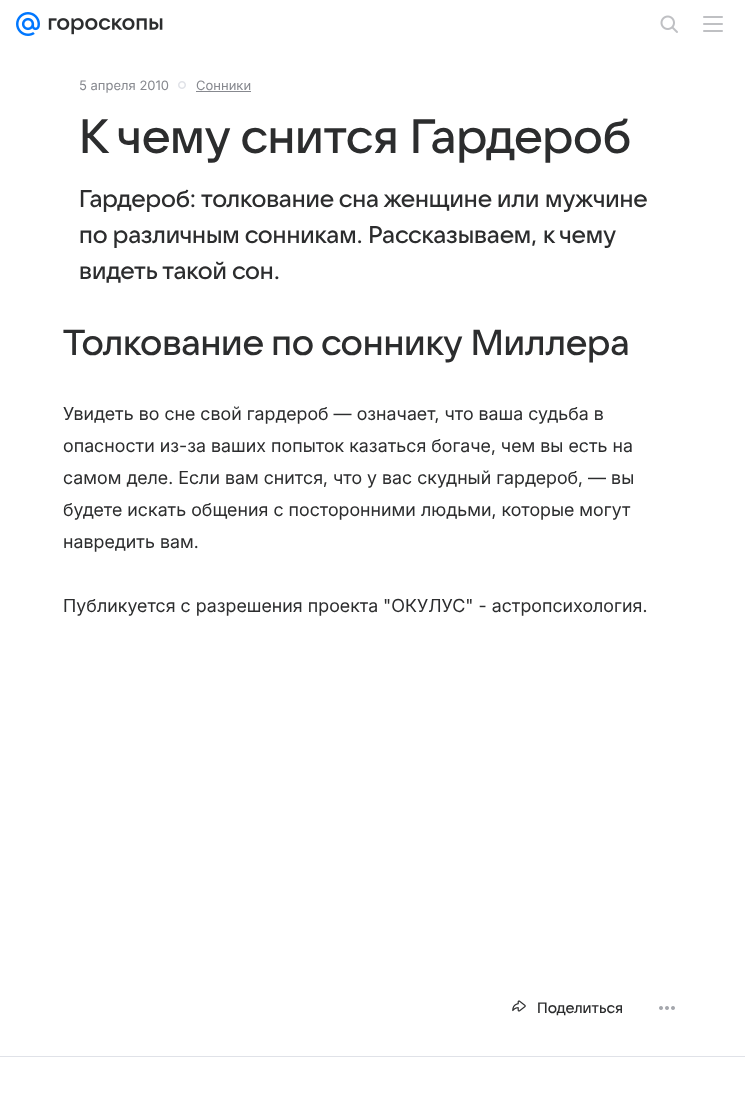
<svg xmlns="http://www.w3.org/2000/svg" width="745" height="1112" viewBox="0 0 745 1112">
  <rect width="100%" height="100%" fill="#ffffff"/>
  <image x="16" y="12" width="24" height="24" href="img1.png"/>
  <image x="48" y="18" width="115" height="17" href="img2.png"/>
  <image x="660" y="15" width="18" height="18" href="img3.png"/>
  <image x="703" y="16" width="20" height="16" href="img4.png"/>
  <text x="79" y="90" font-family="'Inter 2'" font-size="13" fill="#87898f">5 апреля 2010</text>
  <image x="178" y="81" width="8" height="8" href="img5.png"/>
  <text x="196" y="90" font-family="'Inter 2'" font-size="13" fill="#87898f">Сонники</text>
  <rect x="196" y="91" width="55" height="1" fill="#87898f"/>
  <text x="79" y="153" font-family="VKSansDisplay" font-size="48" font-weight="500" letter-spacing="-0.25" fill="#2c2d2e">К чему снится Гардероб</text>
  <text x="79" y="207" font-family="VKSansDisplay" font-size="24" font-weight="500" letter-spacing="-0.1" fill="#2c2d2e">Гардероб: толкование сна женщине или мужчине</text>
  <text x="79" y="243" font-family="VKSansDisplay" font-size="24" font-weight="500" letter-spacing="-0.1" fill="#2c2d2e">по различным сонникам. Рассказываем, к чему</text>
  <text x="79" y="279" font-family="VKSansDisplay" font-size="24" font-weight="500" letter-spacing="-0.1" fill="#2c2d2e">видеть такой сон.</text>
  <text x="63" y="355" font-family="VKSansDisplay" font-size="36" font-weight="500" letter-spacing="-0.2" fill="#2c2d2e">Толкование по соннику Миллера</text>
  <text x="63" y="420" font-family="Inter" font-size="18" letter-spacing="0.05" fill="#2c2d2e">Увидеть во сне свой гардероб — означает, что ваша судьба в</text>
  <text x="63" y="452" font-family="Inter" font-size="18" letter-spacing="0.05" fill="#2c2d2e">опасности из-за ваших попыток казаться богаче, чем вы есть на</text>
  <text x="63" y="484" font-family="Inter" font-size="18" letter-spacing="0.05" fill="#2c2d2e">самом деле. Если вам снится, что у вас скудный гардероб, — вы</text>
  <text x="63" y="516" font-family="Inter" font-size="18" letter-spacing="0.05" fill="#2c2d2e">будете искать общения с посторонними людьми, которые могут</text>
  <text x="63" y="548" font-family="Inter" font-size="18" letter-spacing="0.05" fill="#2c2d2e">навредить вам.</text>
  <text x="63" y="612" font-family="Inter" font-size="18" letter-spacing="0.05" fill="#2c2d2e">Публикуется с разрешения проекта "ОКУЛУС" - астропсихология.</text>
  <image x="512" y="1000" width="14" height="12" href="img6.png"/>
  <text x="537" y="1013" font-family="VKSansDisplay" font-size="15" font-weight="500" fill="#2c2d2e">Поделиться</text>
  <image x="659" y="1006" width="16" height="4" href="img7.png"/>
  <rect x="0" y="1056" width="745" height="1" fill="#e0e2e8"/>
</svg>
